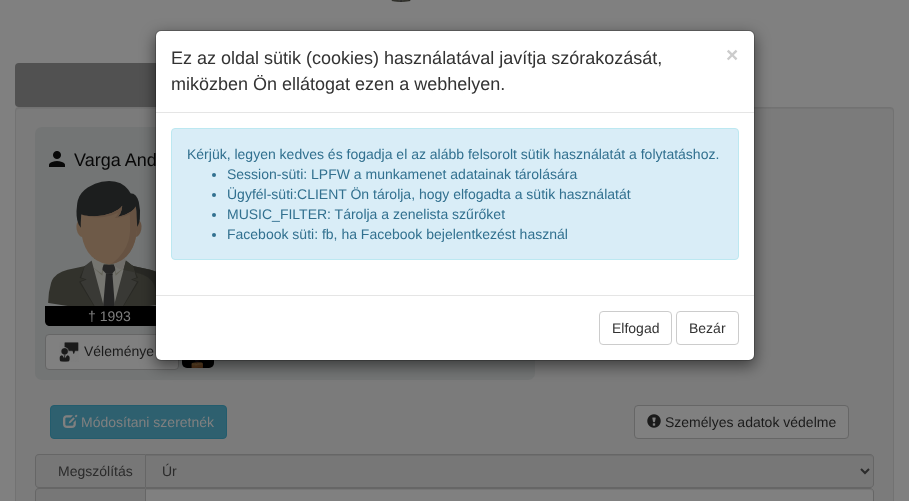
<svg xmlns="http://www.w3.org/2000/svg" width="909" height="501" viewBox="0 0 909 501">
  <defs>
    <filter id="blur1" x="-50%" y="-200%" width="200%" height="500%"><feGaussianBlur stdDeviation="7.5"/></filter>
  </defs>
  <rect width="100%" height="100%" fill="#808080"/>
  <image x="391" y="0" width="20" height="2" href="img1.png"/>
  <rect x="15" y="63" width="469" height="44" rx="4" fill="#515151"/>
  <rect x="15" y="107" width="879" height="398" rx="4" fill="#7b7b7b"/>
  <path d="M19 109H890C892 109 893 110 893 112C893 110 892 108 890 108H19C17 108 16 110 16 112C16 110 17 109 19 109Z" fill="#757575"/>
  <rect x="15.5" y="107.5" width="878" height="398" rx="3.5" fill="none" stroke="#727272"/>
  <rect x="35" y="127" width="500" height="253" rx="7" fill="#737575"/>
  <image x="48" y="181" width="108" height="125" href="img3.png"/>
  <path d="M45 306H173V321C173 324 171 326 168 326H50C47 326 45 324 45 321Z" fill="#000000"/>
  <rect x="45.5" y="334.5" width="133" height="35" rx="3.5" fill="#808080" stroke="#666666"/>
  <image x="182" y="360" width="32" height="8" href="img5.png"/>
  <rect x="155" y="35" width="600" height="331" rx="6" fill="#000000" fill-opacity="0.5" filter="url(#blur1)"/>
  <rect x="156" y="31" width="598" height="329" rx="5" fill="#ffffff"/>
  <text x="74" y="166" font-family="Liberation Sans" font-size="18" fill="#080808">Varga And</text>
  <rect x="155.5" y="30.5" width="599" height="330" rx="5.5" fill="none" stroke="#000000" stroke-opacity="0.2"/>
  <rect x="156" y="112" width="598" height="1" fill="#e5e5e5"/>
  <text x="171" y="64" font-family="Liberation Sans" font-size="18" fill="#333333">Ez az oldal sütik (cookies) használatával javítja szórakozását,</text>
  <text x="171" y="90" font-family="Liberation Sans" font-size="18" fill="#333333">miközben Ön ellátogat ezen a webhelyen.</text>
  <text x="726" y="62" font-family="Liberation Sans" font-size="21" font-weight="bold" fill="#cccccc">×</text>
  <rect x="171.5" y="128.5" width="567" height="131" rx="3.5" fill="#d9edf7" stroke="#bce8f1"/>
  <text x="187" y="159" font-family="Liberation Sans" font-size="14" fill="#31708f">Kérjük, legyen kedves és fogadja el az alább felsorolt sütik használatát a folytatáshoz.</text>
  <circle cx="214" cy="175" r="2" fill="#31708f"/>
  <text x="227" y="179" font-family="Liberation Sans" font-size="14" fill="#31708f">Session-süti: LPFW a munkamenet adatainak tárolására</text>
  <circle cx="214" cy="195" r="2" fill="#31708f"/>
  <text x="227" y="199" font-family="Liberation Sans" font-size="14" fill="#31708f">Ügyfél-süti:CLIENT Ön tárolja, hogy elfogadta a sütik használatát</text>
  <circle cx="214" cy="215" r="2" fill="#31708f"/>
  <text x="227" y="219" font-family="Liberation Sans" font-size="14" fill="#31708f">MUSIC_FILTER: Tárolja a zenelista szűrőket</text>
  <circle cx="214" cy="235" r="2" fill="#31708f"/>
  <text x="227" y="239" font-family="Liberation Sans" font-size="14" fill="#31708f">Facebook süti: fb, ha Facebook bejelentkezést használ</text>
  <rect x="156" y="295" width="598" height="1" fill="#e5e5e5"/>
  <rect x="599.5" y="311.5" width="72" height="33" rx="3.5" fill="none" stroke="#cccccc"/>
  <text x="612" y="333" font-family="Liberation Sans" font-size="14" fill="#333333">Elfogad</text>
  <rect x="676.5" y="311.5" width="62" height="33" rx="3.5" fill="none" stroke="#cccccc"/>
  <text x="689" y="333" font-family="Liberation Sans" font-size="14" fill="#333333">Bezár</text>
  <image x="49" y="151" width="16" height="16" href="img2.png"/>
  <text x="88" y="321" font-family="Liberation Sans" font-size="14" fill="#808080">† 1993</text>
  <image x="59" y="342" width="20" height="20" href="img4.png"/>
  <text x="84" y="356" font-family="Liberation Sans" font-size="14" fill="#1a1a1a">Véleménye</text>
  <rect x="50.5" y="405.5" width="176" height="33" rx="3.5" fill="#2e606f" stroke="#235c6d"/>
  <image x="63" y="414" width="15" height="14" href="img6.png"/>
  <text x="81" y="427" font-family="Liberation Sans" font-size="14" fill="#808080">Módosítani szeretnék</text>
  <rect x="634.5" y="405.5" width="214" height="33" rx="3.5" fill="#808080" stroke="#666666"/>
  <image x="647" y="414" width="14" height="14" href="img7.png"/>
  <text x="665" y="427" font-family="Liberation Sans" font-size="14" fill="#1a1a1a">Személyes adatok védelme</text>
  <path d="M39 454H145V488H39C37 488 35 486 35 484V458C35 456 37 454 39 454Z" fill="#777777"/>
  <path d="M39 454H145V488H39C37 488 35 486 35 484V458C35 456 37 454 39 454ZM39 455H145V487H39C37 487 36 486 36 484V458C36 456 37 455 39 455Z" fill="#666666" fill-rule="evenodd"/>
  <text x="58" y="476" font-family="Liberation Sans" font-size="14" fill="#2b2b2b">Megszólítás</text>
  <path d="M145 454H870C872 454 874 456 874 458V484C874 486 872 488 870 488H145Z" fill="#777777"/>
  <path d="M146 456H870C872 456 873 457 873 459C873 457 872 455 870 455H146Z" fill="#6e6e6e"/>
  <path d="M145.5 454.5H870C872 454.5 873.5 456 873.5 458V484C873.5 486 872 487.5 870 487.5H145.5Z" fill="none" stroke="#666666"/>
  <path d="M861 469L865 473L869 469" fill="none" stroke="#2b2b2b" stroke-width="2"/>
  <text x="162" y="476" font-family="Liberation Sans" font-size="14" fill="#2b2b2b">Úr</text>
  <path d="M39 488H145V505H39C37 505 35 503 35 501V492C35 490 37 488 39 488Z" fill="#777777"/>
  <path d="M39 488H145V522H39C37 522 35 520 35 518V492C35 490 37 488 39 488ZM39 489H145V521H39C37 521 36 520 36 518V492C36 490 37 489 39 489Z" fill="#666666" fill-rule="evenodd"/>
  <path d="M145 488H870C872 488 874 490 874 492V501C874 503 872 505 870 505H145Z" fill="#808080"/>
  <path d="M146 490H870C872 490 873 491 873 493C873 491 872 489 870 489H146Z" fill="#767676"/>
  <path d="M145.5 488.5H870C872 488.5 873.5 490 873.5 492V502C873.5 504 872 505.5 870 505.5H145.5Z" fill="none" stroke="#666666"/>
</svg>
